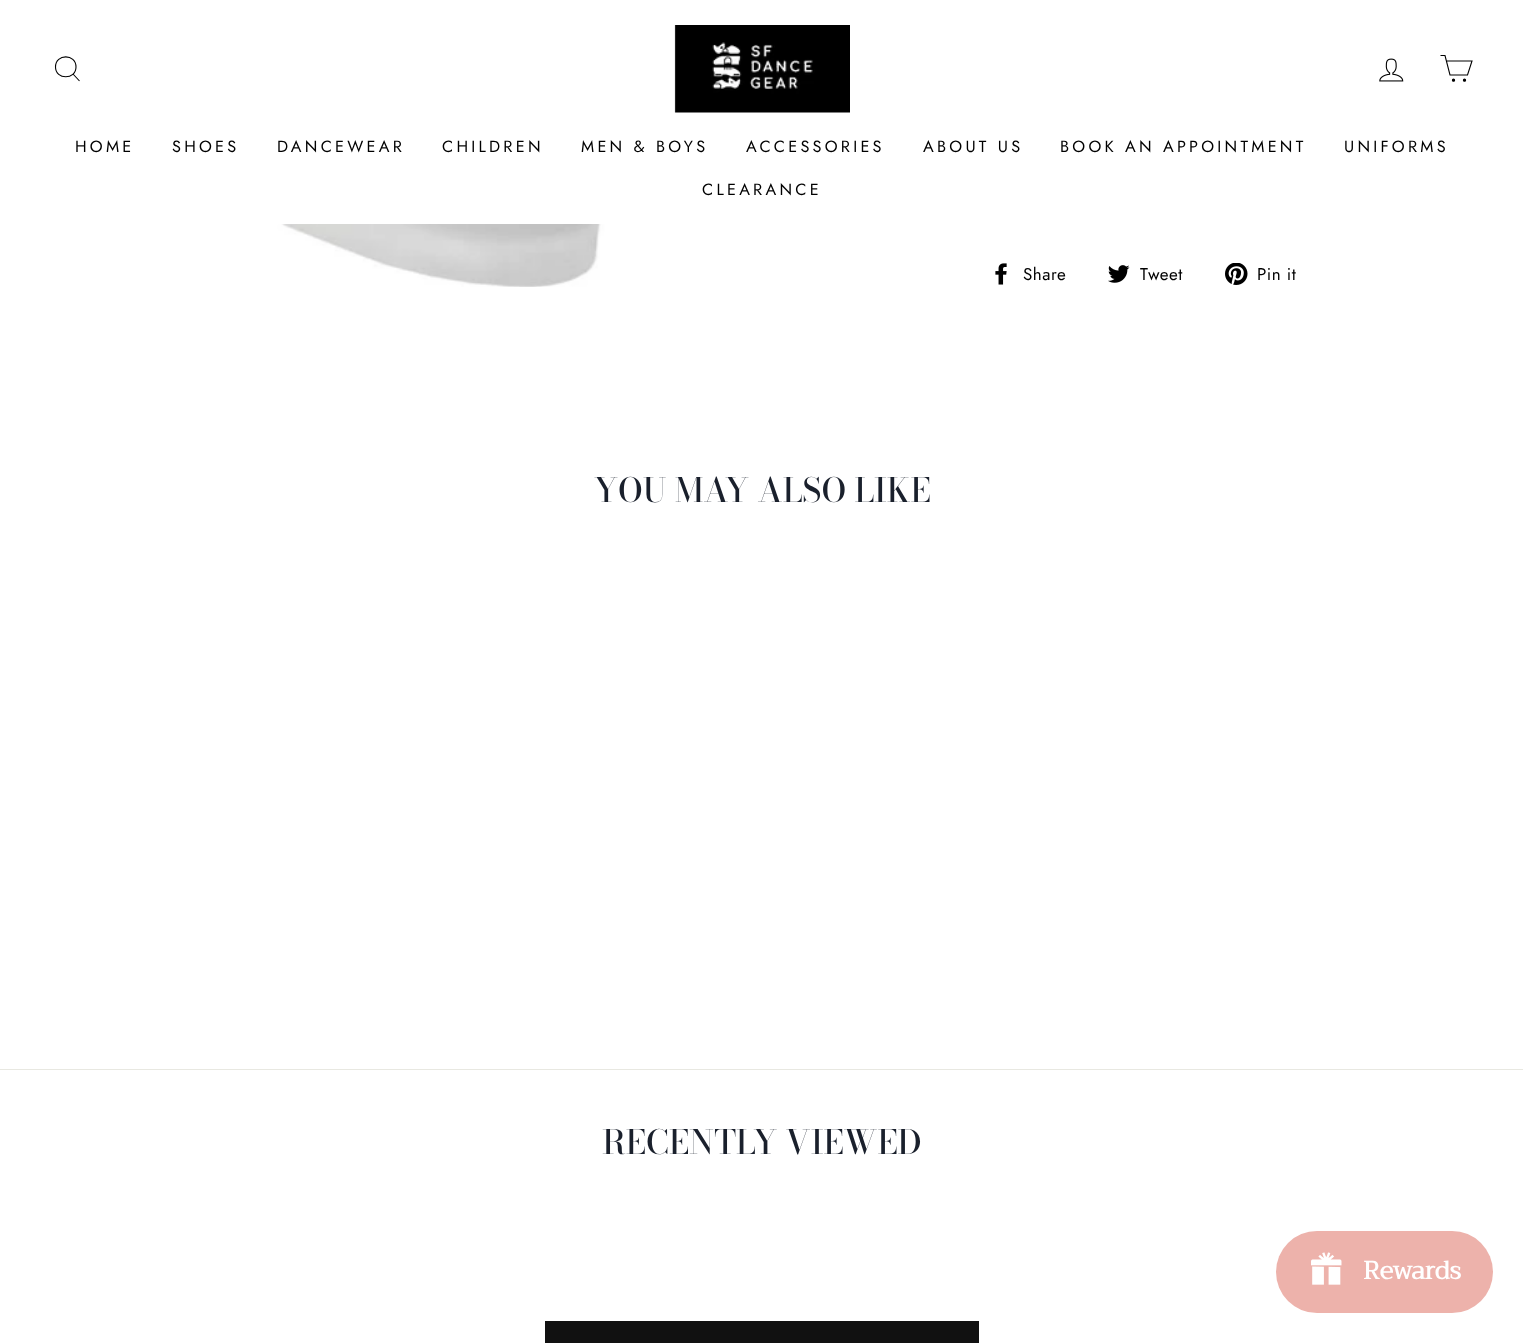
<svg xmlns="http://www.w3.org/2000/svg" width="1523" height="1343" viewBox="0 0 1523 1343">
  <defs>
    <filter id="blur1" x="-50%" y="-200%" width="200%" height="500%"><feGaussianBlur stdDeviation="0.5"/></filter>
  </defs>
  <rect width="100%" height="100%" fill="#ffffff"/>
  <image x="63" y="224" width="686" height="63" href="img3.png"/>
  <rect x="0" y="0" width="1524" height="224" fill="#000000" fill-opacity="0.2" filter="url(#blur1)"/>
  <rect x="0" y="0" width="1523" height="224" fill="#ffffff"/>
  <path d="M76 67C76 80 55.5 80 55.5 67C55.5 53.5 76 53.5 76 67ZM79.5 81L73 74" fill="none" stroke="#000000" stroke-width="1.1"/>
  <image x="674" y="25" width="176" height="88" href="img1.png"/>
  <image x="1379" y="58" width="25" height="24" href="img2.png"/>
  <path d="M1446.5 61H1472L1467.5 75H1450L1445 55.5H1440.5" fill="none" stroke="#000000" stroke-width="1.1"/>
  <circle cx="1453.5" cy="80.2" r="1.1" fill="#000000" stroke="#000000" stroke-width="1.1"/>
  <circle cx="1464.5" cy="80.2" r="1.1" fill="#000000" stroke="#000000" stroke-width="1.1"/>
  <text x="75" y="152" font-family="Jost" font-size="16.25" letter-spacing="3.25" fill="#000000">HOME</text>
  <text x="172" y="152" font-family="Jost" font-size="16.25" letter-spacing="3.25" fill="#000000">SHOES</text>
  <text x="277" y="152" font-family="Jost" font-size="16.25" letter-spacing="3.25" fill="#000000">DANCEWEAR</text>
  <text x="442" y="152" font-family="Jost" font-size="16.25" letter-spacing="3.25" fill="#000000">CHILDREN</text>
  <text x="581" y="152" font-family="Jost" font-size="16.25" letter-spacing="3.25" fill="#000000">MEN &amp; BOYS</text>
  <text x="746" y="152" font-family="Jost" font-size="16.25" letter-spacing="3.25" fill="#000000">ACCESSORIES</text>
  <text x="923" y="152" font-family="Jost" font-size="16.25" letter-spacing="3.25" fill="#000000">ABOUT US</text>
  <text x="1060" y="152" font-family="Jost" font-size="16.25" letter-spacing="3.25" fill="#000000">BOOK AN APPOINTMENT</text>
  <text x="1344" y="152" font-family="Jost" font-size="16.25" letter-spacing="3.25" fill="#000000">UNIFORMS</text>
  <text x="702" y="195" font-family="Jost" font-size="16.25" letter-spacing="3.25" fill="#000000">CLEARANCE</text>
  <image x="995" y="263" width="12" height="22" href="img4.png"/>
  <text x="1023" y="280" font-family="Jost" font-size="17" letter-spacing="0.5" fill="#000000">Share</text>
  <image x="1108" y="265" width="22" height="18" href="img5.png"/>
  <text x="1140" y="280" font-family="Jost" font-size="17" letter-spacing="0.5" fill="#000000">Tweet</text>
  <image x="1225" y="263" width="23" height="22" href="img6.png"/>
  <text x="1257" y="280" font-family="Jost" font-size="17" letter-spacing="0.5" fill="#000000">Pin it</text>
  <text x="594" y="502" font-family="Bodoni Moda" font-size="33.25" font-weight="500" fill="#1a202c">YOU MAY ALSO LIKE</text>
  <rect x="0" y="1069" width="1523" height="1" fill="#e8e8e1"/>
  <text x="602" y="1154" font-family="Bodoni Moda" font-size="33.25" font-weight="500" fill="#1a202c">RECENTLY VIEWED</text>
  <rect x="545" y="1321" width="434" height="22" fill="#111111"/>
  <rect x="1276" y="1231" width="217" height="82" rx="41" fill="#edb2ab"/>
  <image x="1311" y="1252" width="31" height="33" href="img7.png"/>
  <text x="1363" y="1279" font-family="Trirong" font-size="25" font-weight="bold" fill="#ffffff">Rewards</text>
</svg>
